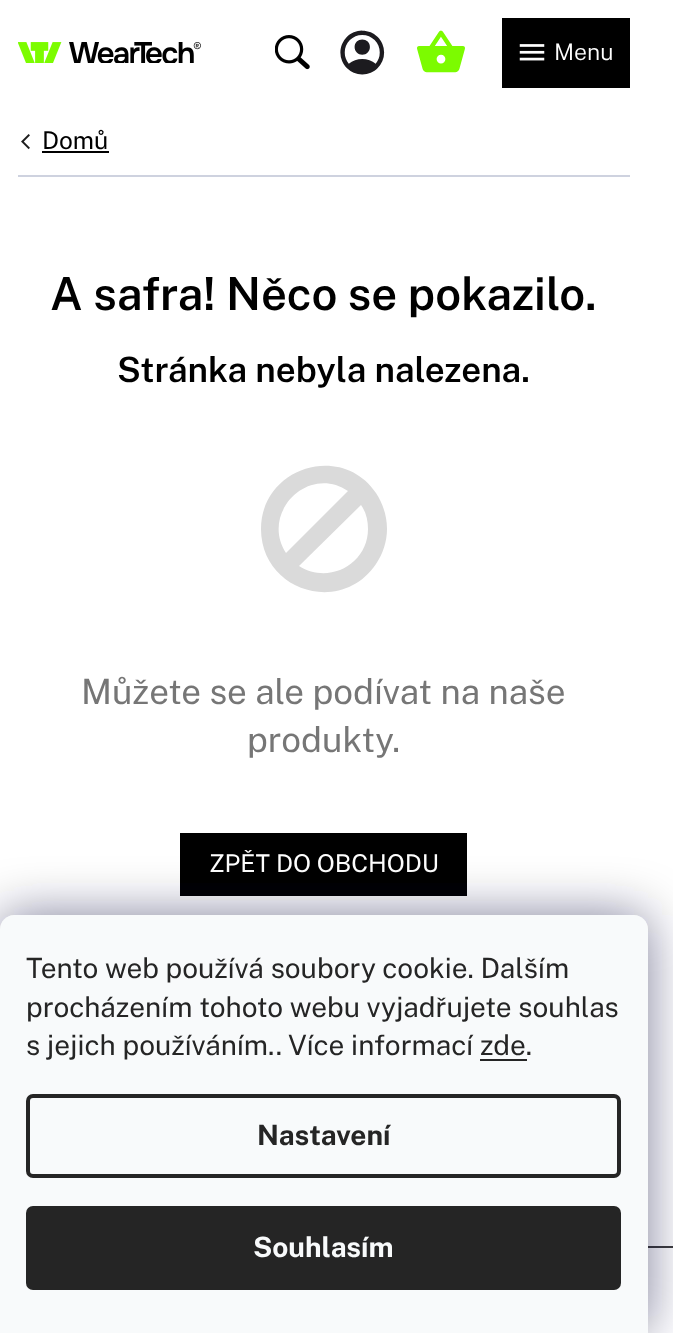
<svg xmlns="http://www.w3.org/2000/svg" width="673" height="1333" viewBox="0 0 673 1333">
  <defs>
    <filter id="blur1" x="-50%" y="-200%" width="200%" height="500%"><feGaussianBlur stdDeviation="26"/></filter>
  </defs>
  <rect width="100%" height="100%" fill="#ffffff"/>
  <image x="18" y="42" width="183" height="21" href="img1.png"/>
  <image x="275" y="35" width="35" height="35" href="img2.png"/>
  <image x="340" y="30" width="45" height="45" href="img3.png"/>
  <image x="417" y="30" width="48" height="43" href="img4.png"/>
  <rect x="502" y="18" width="128" height="70" fill="#000000"/>
  <image x="519" y="44" width="26" height="17" href="img5.png"/>
  <text x="554" y="60" font-family="Public Sans" font-size="23" font-weight="300" fill="#ffffff">Menu</text>
  <rect x="18" y="175" width="612" height="2" fill="#ced2df"/>
  <image x="21" y="134" width="9" height="16" href="img6.png"/>
  <text x="42" y="149" font-family="Public Sans" font-size="24.5" fill="#000000">Domů</text>
  <rect x="42" y="151" width="67" height="2" fill="#000000"/>
  <text x="50" y="310" font-family="Public Sans" font-size="45.5" font-weight="600" fill="#000000">A safra! Něco se pokazilo.</text>
  <text x="117" y="382" font-family="Public Sans" font-size="35" font-weight="600" fill="#000000">Stránka nebyla nalezena.</text>
  <path d="M368 529C368 520 366 512 361 505L299 566C329 585 368 564 368 529ZM286 553L348 491C308 464 260 513 286 553ZM387 529C387 541 383 554 376 564C341 616 261 591 261 529C261 467 342 442 376 493C383 504 387 516 387 529Z" fill="#dadada"/>
  <text x="81" y="704" font-family="Public Sans" font-size="35" fill="#767676">Můžete se ale podívat na naše</text>
  <text x="247" y="752" font-family="Public Sans" font-size="35" fill="#767676">produkty.</text>
  <rect x="180" y="833" width="287" height="63" fill="#000000"/>
  <text x="209" y="872" font-family="Public Sans" font-size="24.5" fill="#ffffff">ZPĚT DO OBCHODU</text>
  <rect x="648" y="1246" width="25" height="2" fill="#3e3e3e"/>
  <rect x="0" y="915" width="648" height="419" rx="14" fill="#1b1939" fill-opacity="0.5" filter="url(#blur1)"/>
  <path d="M14 915H634C641.5 915 648 921.5 648 929V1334H0V929C0 921.5 6.5 915 14 915Z" fill="#f8fafb"/>
  <text x="26" y="978" font-family="Public Sans" font-size="28" fill="#252525">Tento web používá soubory cookie. Dalším</text>
  <text x="26" y="1017" font-family="Public Sans" font-size="28" fill="#252525">procházením tohoto webu vyjadřujete souhlas</text>
  <text x="26" y="1055" font-family="Public Sans" font-size="28" fill="#252525">s jejich používáním.. Více informací zde.</text>
  <rect x="480" y="1059" width="47" height="2" fill="#252525"/>
  <rect x="28" y="1096" width="591" height="80" rx="5" fill="none" stroke="#252525" stroke-width="4"/>
  <text x="257" y="1145" font-family="Public Sans" font-size="28" font-weight="bold" fill="#252525">Nastavení</text>
  <rect x="26" y="1206" width="595" height="84" rx="7" fill="#252525"/>
  <text x="253" y="1257" font-family="Public Sans" font-size="28" font-weight="bold" fill="#f8fafb">Souhlasím</text>
</svg>
